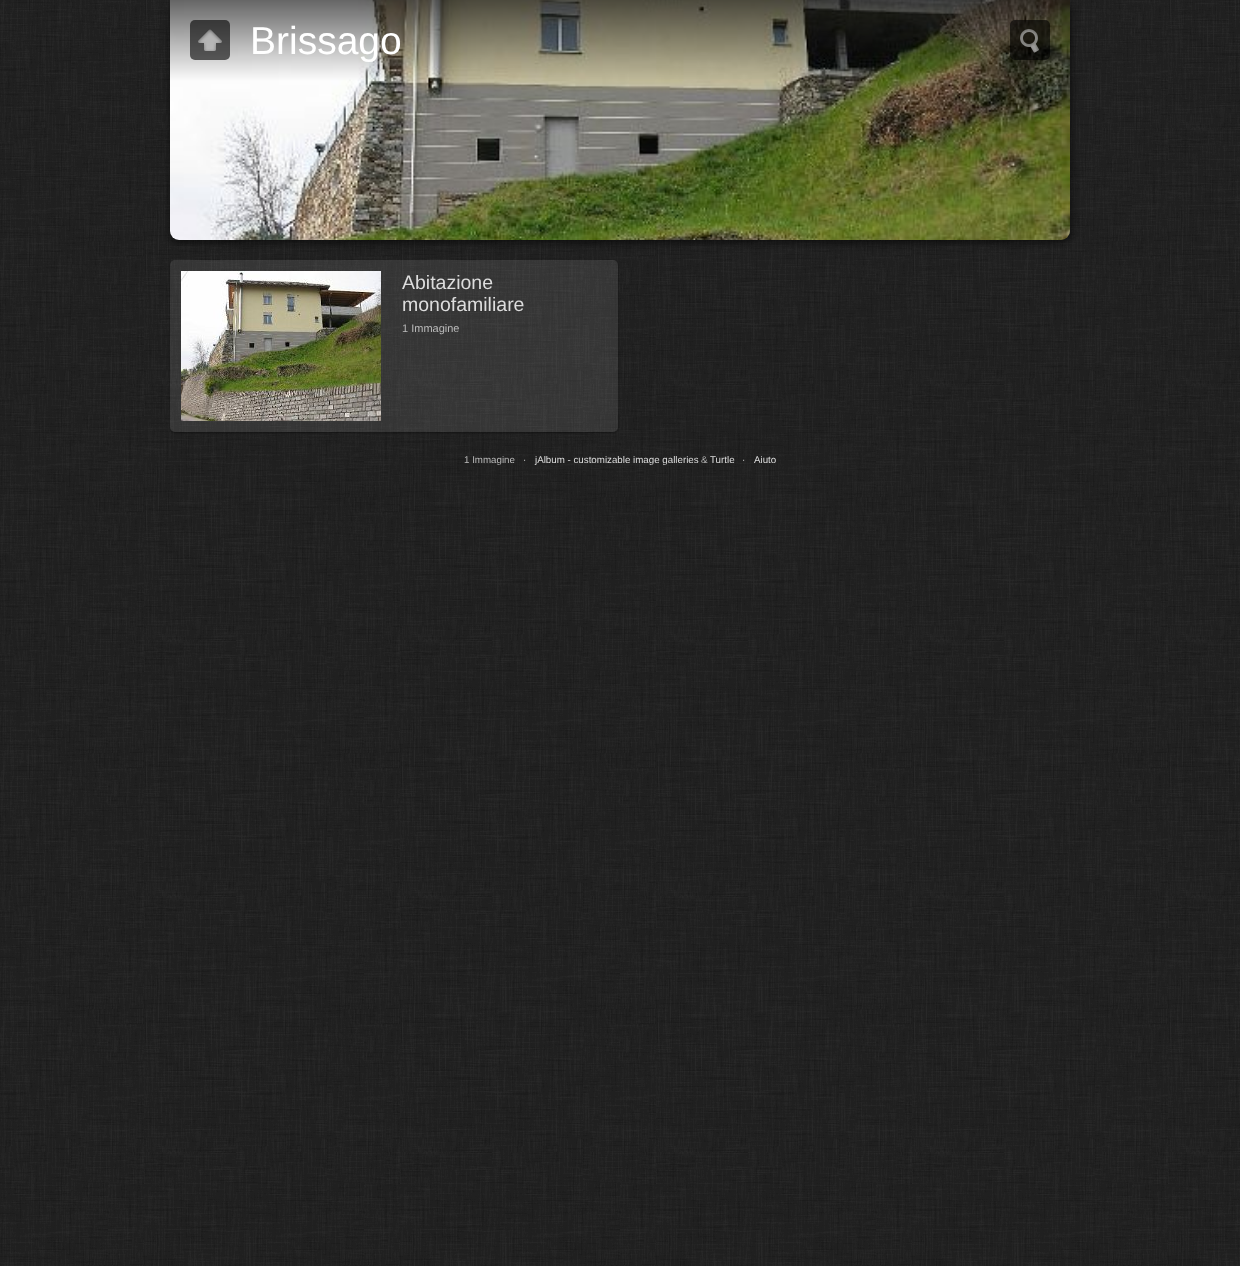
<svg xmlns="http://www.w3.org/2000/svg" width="1240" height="1266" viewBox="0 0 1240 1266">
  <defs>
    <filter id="blur1" x="-50%" y="-200%" width="200%" height="500%"><feGaussianBlur stdDeviation="4"/></filter>
    <clipPath id="clip1"><path d="M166 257H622V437H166ZM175 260H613C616 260 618 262 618 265V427C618 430 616 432 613 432H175C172 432 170 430 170 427V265C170 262 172 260 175 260Z" clip-rule="evenodd"/></clipPath>
    <filter id="blur2" x="-50%" y="-200%" width="200%" height="500%"><feGaussianBlur stdDeviation="1"/></filter>
  </defs>
  <rect width="100%" height="100%" fill="#222222"/>
  <image x="0" y="0" width="1240" height="1266" href="img1.png"/>
  <rect x="171" y="3" width="900" height="240" rx="9" fill="#000000" fill-opacity="0.6" filter="url(#blur1)"/>
  <path d="M170 0H1070V231C1070 236 1066 240 1061 240H179C174 240 170 236 170 231Z" fill="#000000" fill-opacity="0.2"/>
  <image x="170" y="0" width="900" height="240" href="img2.png"/>
  <rect x="190" y="20" width="40" height="40" rx="5" fill="#000000" fill-opacity="0.6"/>
  <image x="198" y="29" width="24" height="22" href="img3.png"/>
  <text x="250" y="54" font-family="Liberation Sans" font-size="39" fill="#ffffff">Brissago</text>
  <rect x="1010" y="20" width="40" height="40" rx="5" fill="#000000" fill-opacity="0.6"/>
  <image x="1020" y="29" width="19" height="24" href="img4.png"/>
  <g clip-path="url(#clip1)">
    <rect x="170" y="261" width="448" height="172" rx="5" fill="#000000" fill-opacity="0.4" filter="url(#blur2)"/>
  </g>
  <rect x="170" y="260" width="448" height="172" rx="5" fill="#ffffff" fill-opacity="0.1"/>
  <image x="181" y="271" width="200" height="150" href="img5.png"/>
  <text x="402" y="289" font-family="Liberation Sans" font-size="19.5" fill="#dddddd">Abitazione</text>
  <text x="402" y="311" font-family="Liberation Sans" font-size="19.5" fill="#dddddd">monofamiliare</text>
  <text x="402" y="332" font-family="Liberation Sans" font-size="11" fill="#bbbbbb">1 Immagine</text>
  <text x="464" y="463" font-family="Liberation Sans" font-size="9.75" fill="#bbbbbb" xml:space="preserve">1 Immagine   ·</text>
  <text x="535" y="463" font-family="Liberation Sans" font-size="9.75" fill="#dddddd">jAlbum - customizable image galleries</text>
  <text x="701" y="463" font-family="Liberation Sans" font-size="9.75" fill="#bbbbbb">&amp;</text>
  <text x="710" y="463" font-family="Liberation Sans" font-size="9.75" fill="#dddddd">Turtle</text>
  <text x="742" y="463" font-family="Liberation Sans" font-size="9.75" fill="#bbbbbb">·</text>
  <text x="754" y="463" font-family="Liberation Sans" font-size="9.75" fill="#dddddd">Aiuto</text>
</svg>
